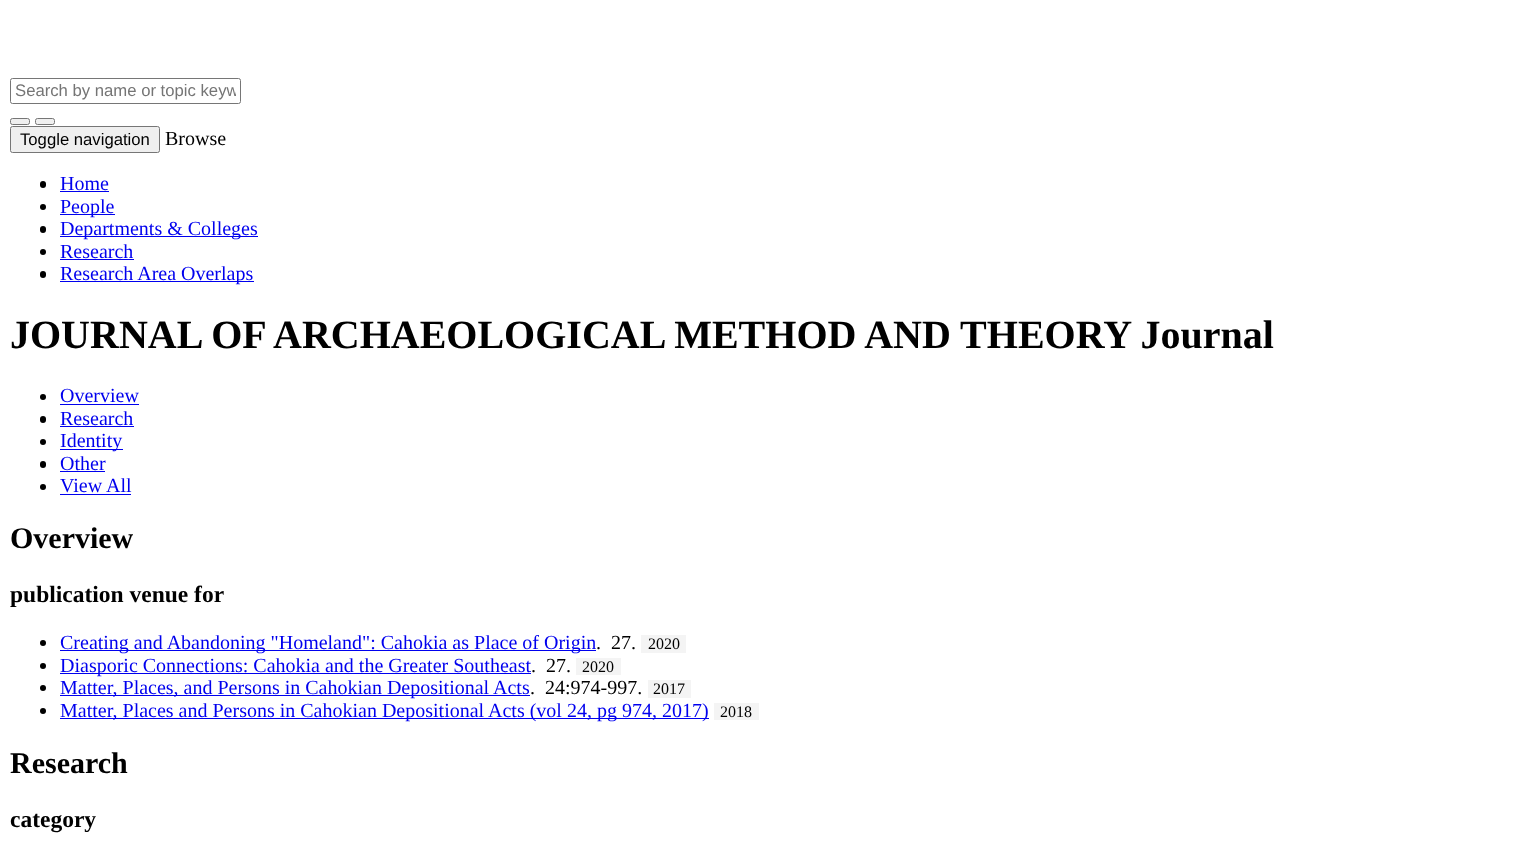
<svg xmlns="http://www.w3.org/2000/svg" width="1527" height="861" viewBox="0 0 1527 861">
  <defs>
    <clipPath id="clip1"><rect x="15" y="81" width="221" height="19"/></clipPath>
  </defs>
  <rect width="100%" height="100%" fill="#ffffff"/>
  <rect x="10.5" y="78.5" width="230" height="25" rx="2" fill="none" stroke="#767676"/>
  <g clip-path="url(#clip1)">
    <text x="15" y="96" font-family="Liberation Sans" font-size="16.7" fill="#757575">Search by name or topic keyw</text>
  </g>
  <rect x="10.5" y="118.5" width="19" height="6" rx="2" fill="#efefef" stroke="#767676"/>
  <rect x="35.5" y="118.5" width="19" height="6" rx="2" fill="#efefef" stroke="#767676"/>
  <rect x="10.5" y="126.5" width="149" height="26" rx="2" fill="#efefef" stroke="#767676"/>
  <text x="20" y="145" font-family="Liberation Sans" font-size="16.7" fill="#000000">Toggle navigation</text>
  <text x="165" y="145" font-family="Liberation Serif" font-size="20" fill="#000000">Browse</text>
  <rect x="40" y="181" width="6" height="7" rx="3" fill="#000000"/>
  <text x="60" y="190" font-family="Liberation Serif" font-size="20" fill="#0000ee">Home</text>
  <rect x="60" y="191" width="49" height="1" fill="#0000ee"/>
  <circle cx="43" cy="207" r="3" fill="#000000"/>
  <rect x="60" y="214" width="55" height="1" fill="#0000ee"/>
  <text x="60" y="213" font-family="Liberation Serif" font-size="20" fill="#0000ee">People</text>
  <rect x="40" y="226" width="6" height="7" rx="3" fill="#000000"/>
  <rect x="60" y="236" width="198" height="1" fill="#0000ee"/>
  <text x="60" y="235" font-family="Liberation Serif" font-size="20" fill="#0000ee">Departments &amp; Colleges</text>
  <circle cx="43" cy="252" r="3" fill="#000000"/>
  <text x="60" y="258" font-family="Liberation Serif" font-size="20" fill="#0000ee">Research</text>
  <rect x="60" y="259" width="74" height="1" fill="#0000ee"/>
  <rect x="40" y="271" width="6" height="7" rx="3" fill="#000000"/>
  <rect x="60" y="281" width="194" height="1" fill="#0000ee"/>
  <text x="60" y="280" font-family="Liberation Serif" font-size="20" fill="#0000ee">Research Area Overlaps</text>
  <text x="10" y="348" font-family="Liberation Serif" font-size="40" font-weight="bold" fill="#000000">JOURNAL OF ARCHAEOLOGICAL METHOD AND THEORY Journal</text>
  <circle cx="43" cy="397" r="3" fill="#000000"/>
  <text x="60" y="402" font-family="Liberation Serif" font-size="20" fill="#0000ee">Overview</text>
  <rect x="60" y="404" width="79" height="1" fill="#0000ee"/>
  <rect x="40" y="416" width="6" height="7" rx="3" fill="#000000"/>
  <text x="60" y="425" font-family="Liberation Serif" font-size="20" fill="#0000ee">Research</text>
  <rect x="60" y="426" width="74" height="1" fill="#0000ee"/>
  <circle cx="43" cy="442" r="3" fill="#000000"/>
  <rect x="60" y="449" width="63" height="1" fill="#0000ee"/>
  <text x="60" y="447" font-family="Liberation Serif" font-size="20" fill="#0000ee">Identity</text>
  <rect x="40" y="461" width="6" height="7" rx="3" fill="#000000"/>
  <text x="60" y="470" font-family="Liberation Serif" font-size="20" fill="#0000ee">Other</text>
  <rect x="60" y="471" width="45" height="1" fill="#0000ee"/>
  <circle cx="43" cy="487" r="3" fill="#000000"/>
  <text x="60" y="492" font-family="Liberation Serif" font-size="20" fill="#0000ee">View All</text>
  <rect x="60" y="494" width="71" height="1" fill="#0000ee"/>
  <text x="10" y="548" font-family="Liberation Serif" font-size="30" font-weight="bold" fill="#000000">Overview</text>
  <text x="10" y="602" font-family="Liberation Serif" font-size="23.5" font-weight="bold" fill="#000000">publication venue for</text>
  <circle cx="43" cy="643" r="3" fill="#000000"/>
  <rect x="60" y="650" width="536" height="1" fill="#0000ee"/>
  <text x="60" y="649" font-family="Liberation Serif" font-size="20" fill="#0000ee">Creating and Abandoning "Homeland": Cahokia as Place of Origin</text>
  <text x="611" y="649" font-family="Liberation Serif" font-size="20" fill="#000000">27.</text>
  <rect x="641" y="635" width="45" height="18" fill="#f4f4f4"/>
  <text x="648" y="649" font-family="Liberation Serif" font-size="16" fill="#000000">2020</text>
  <text x="596" y="649" font-family="Liberation Serif" font-size="20" fill="#000000">.</text>
  <circle cx="43" cy="666" r="3" fill="#000000"/>
  <rect x="60" y="673" width="471" height="1" fill="#0000ee"/>
  <text x="60" y="672" font-family="Liberation Serif" font-size="20" fill="#0000ee">Diasporic Connections: Cahokia and the Greater Southeast</text>
  <text x="546" y="672" font-family="Liberation Serif" font-size="20" fill="#000000">27.</text>
  <rect x="576" y="658" width="45" height="17" fill="#f4f4f4"/>
  <text x="582" y="672" font-family="Liberation Serif" font-size="16" fill="#000000">2020</text>
  <text x="531" y="672" font-family="Liberation Serif" font-size="20" fill="#000000">.</text>
  <circle cx="43" cy="688" r="3" fill="#000000"/>
  <rect x="60" y="695" width="470" height="1" fill="#0000ee"/>
  <text x="60" y="694" font-family="Liberation Serif" font-size="20" fill="#0000ee">Matter, Places, and Persons in Cahokian Depositional Acts</text>
  <text x="545" y="694" font-family="Liberation Serif" font-size="20" fill="#000000">24:974-997.</text>
  <rect x="648" y="680" width="43" height="18" fill="#f4f4f4"/>
  <text x="653" y="694" font-family="Liberation Serif" font-size="16" fill="#000000">2017</text>
  <text x="530" y="694" font-family="Liberation Serif" font-size="20" fill="#000000">.</text>
  <circle cx="43" cy="711" r="3" fill="#000000"/>
  <rect x="60" y="718" width="649" height="1" fill="#0000ee"/>
  <text x="60" y="717" font-family="Liberation Serif" font-size="20" fill="#0000ee">Matter, Places and Persons in Cahokian Depositional Acts (vol 24, pg 974, 2017)</text>
  <rect x="714" y="703" width="45" height="17" fill="#f4f4f4"/>
  <text x="720" y="717" font-family="Liberation Serif" font-size="16" fill="#000000">2018</text>
  <text x="10" y="773" font-family="Liberation Serif" font-size="30" font-weight="bold" fill="#000000">Research</text>
  <text x="10" y="827" font-family="Liberation Serif" font-size="23.5" font-weight="bold" fill="#000000">category</text>
</svg>
